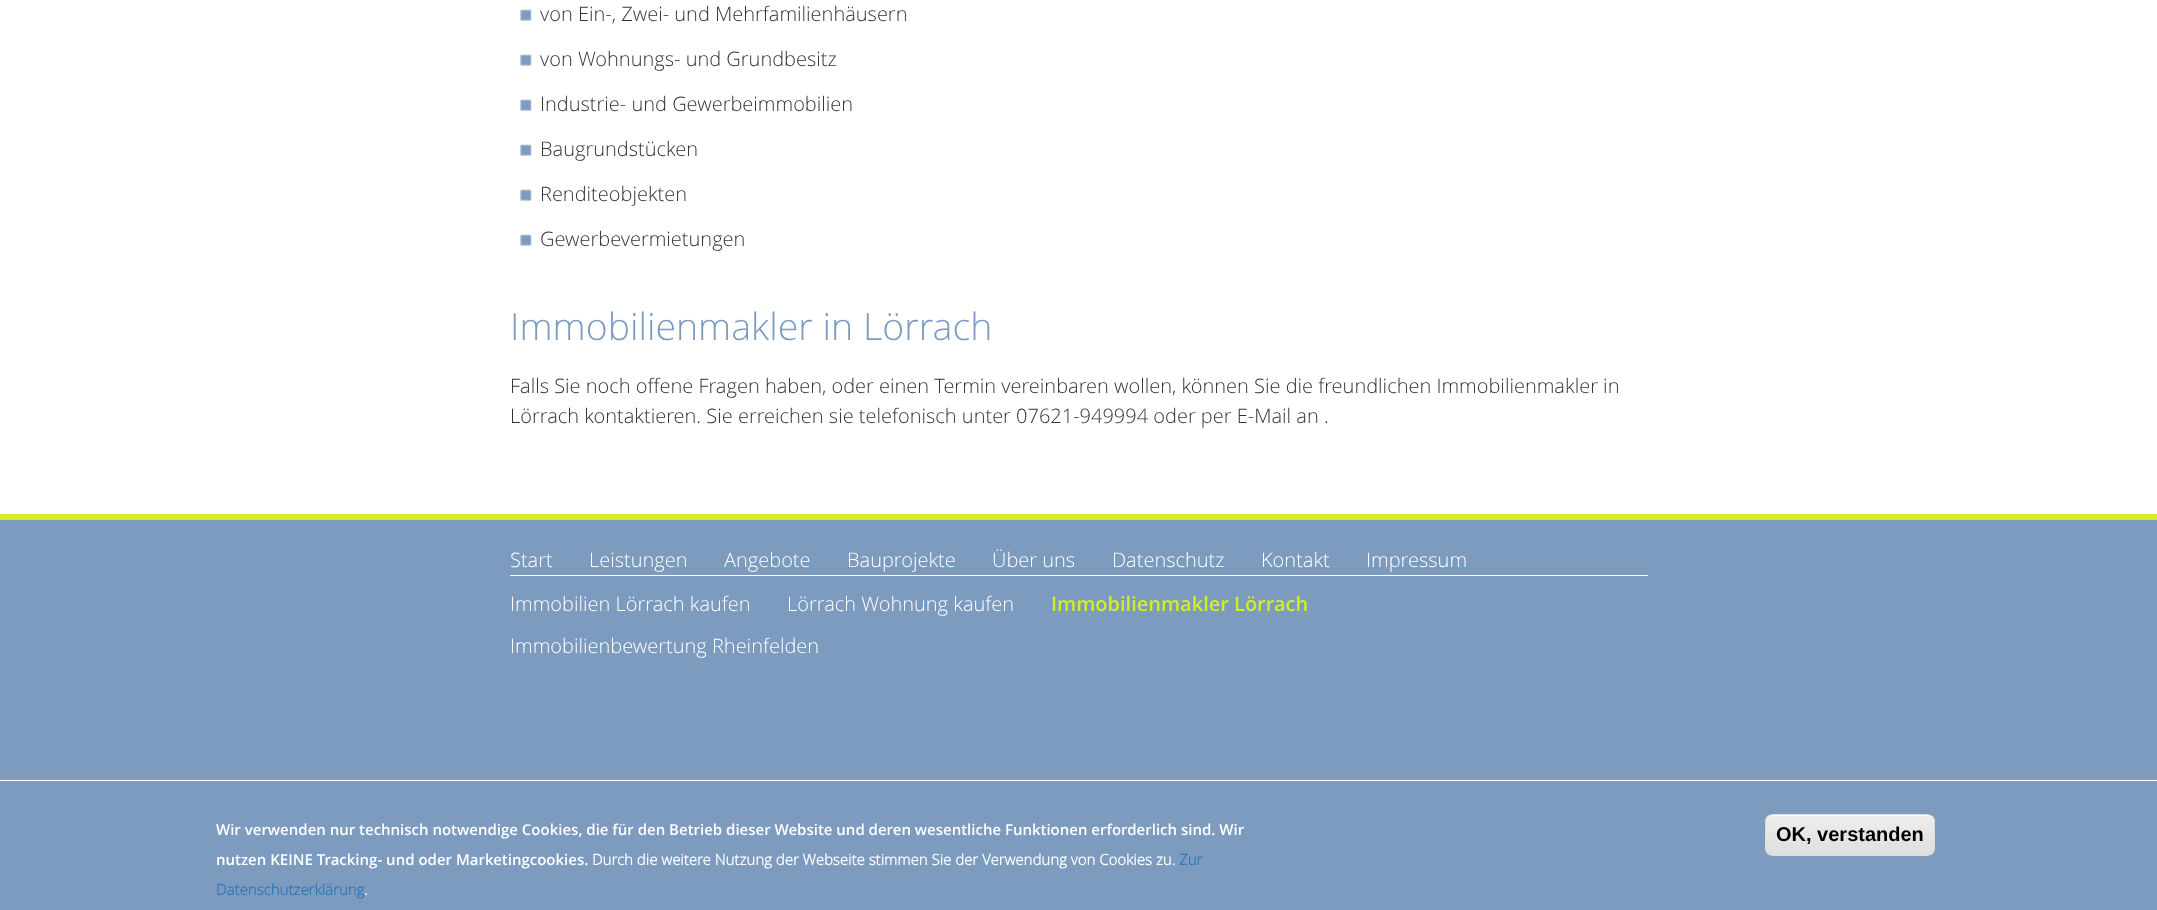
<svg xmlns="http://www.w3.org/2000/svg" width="2157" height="910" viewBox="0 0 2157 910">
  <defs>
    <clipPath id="clip1"><rect x="1765" y="814" width="170" height="42" rx="8"/></clipPath>
    <linearGradient id="g1" gradientUnits="userSpaceOnUse" x1="1850" y1="815" x2="1850" y2="855"><stop offset="0.05" stop-color="#ededed"/><stop offset="1" stop-color="#dfdfdf"/></linearGradient>
  </defs>
  <rect width="100%" height="100%" fill="#ffffff"/>
  <image x="520" y="9" width="12" height="12" href="img1.png"/>
  <text x="540" y="21" font-family="Open Sans" font-size="20" font-weight="300" fill="#333333">von Ein-, Zwei- und Mehrfamilienhäusern</text>
  <image x="520" y="54" width="12" height="12" href="img1.png"/>
  <text x="540" y="66" font-family="Open Sans" font-size="20" font-weight="300" fill="#333333">von Wohnungs- und Grundbesitz</text>
  <image x="520" y="99" width="12" height="12" href="img1.png"/>
  <text x="540" y="111" font-family="Open Sans" font-size="20" font-weight="300" fill="#333333">Industrie- und Gewerbeimmobilien</text>
  <image x="520" y="144" width="12" height="12" href="img1.png"/>
  <text x="540" y="156" font-family="Open Sans" font-size="20" font-weight="300" fill="#333333">Baugrundstücken</text>
  <image x="520" y="189" width="12" height="12" href="img1.png"/>
  <text x="540" y="201" font-family="Open Sans" font-size="20" font-weight="300" fill="#333333">Renditeobjekten</text>
  <image x="520" y="234" width="12" height="12" href="img1.png"/>
  <text x="540" y="246" font-family="Open Sans" font-size="20" font-weight="300" fill="#333333">Gewerbevermietungen</text>
  <text x="510" y="340" font-family="Open Sans" font-size="37.5" font-weight="300" fill="#7d9abf">Immobilienmakler in Lörrach</text>
  <text x="510" y="393" font-family="Open Sans" font-size="20" font-weight="300" fill="#333333">Falls Sie noch offene Fragen haben, oder einen Termin vereinbaren wollen, können Sie die freundlichen Immobilienmakler in</text>
  <text x="510" y="423" font-family="Open Sans" font-size="20" font-weight="300" fill="#333333">Lörrach kontaktieren. Sie erreichen sie telefonisch unter 07621-949994 oder per E-Mail an .</text>
  <rect x="0" y="520" width="2157" height="260" fill="#7d9abf"/>
  <rect x="0" y="514" width="2157" height="6" fill="#d1ef20"/>
  <rect x="510" y="575" width="1138" height="1" fill="#ffffff"/>
  <text x="510" y="567" font-family="Open Sans" font-size="20" font-weight="300" fill="#ffffff">Start</text>
  <text x="589" y="567" font-family="Open Sans" font-size="20" font-weight="300" fill="#ffffff">Leistungen</text>
  <text x="724" y="567" font-family="Open Sans" font-size="20" font-weight="300" fill="#ffffff">Angebote</text>
  <text x="847" y="567" font-family="Open Sans" font-size="20" font-weight="300" fill="#ffffff">Bauprojekte</text>
  <text x="992" y="567" font-family="Open Sans" font-size="20" font-weight="300" fill="#ffffff">Über uns</text>
  <text x="1112" y="567" font-family="Open Sans" font-size="20" font-weight="300" fill="#ffffff">Datenschutz</text>
  <text x="1261" y="567" font-family="Open Sans" font-size="20" font-weight="300" fill="#ffffff">Kontakt</text>
  <text x="1366" y="567" font-family="Open Sans" font-size="20" font-weight="300" fill="#ffffff">Impressum</text>
  <text x="510" y="611" font-family="Open Sans" font-size="20" font-weight="300" fill="#ffffff">Immobilien Lörrach kaufen</text>
  <text x="787" y="611" font-family="Open Sans" font-size="20" font-weight="300" fill="#ffffff">Lörrach Wohnung kaufen</text>
  <text x="1051" y="611" font-family="Open Sans" font-size="20" font-weight="600" fill="#d1ef20">Immobilienmakler Lörrach</text>
  <text x="510" y="653" font-family="Open Sans" font-size="20" font-weight="300" fill="#ffffff">Immobilienbewertung Rheinfelden</text>
  <rect x="0" y="781" width="2157" height="129" fill="#7d9abf"/>
  <text x="216" y="835" font-family="Open Sans" font-size="15" font-weight="600" fill="#ffffff">Wir verwenden nur technisch notwendige Cookies, die für den Betrieb dieser Website und deren wesentliche Funktionen erforderlich sind. Wir</text>
  <text x="216" y="865" font-family="Open Sans" font-size="15" font-weight="600" fill="#ffffff">nutzen KEINE Tracking- und oder Marketingcookies.</text>
  <text x="592" y="865" font-family="Open Sans" font-size="15" font-weight="bold" fill="#ffffff">Durch die weitere Nutzung der Webseite stimmen Sie der Verwendung von Cookies zu.</text>
  <text x="1179" y="865" font-family="Open Sans" font-size="15" font-weight="bold" fill="#337ab7">Zur</text>
  <text x="216" y="895" font-family="Open Sans" font-size="15" font-weight="bold" fill="#337ab7">Datenschutzerklärung</text>
  <text x="364" y="895" font-family="Open Sans" font-size="15" font-weight="bold" fill="#ffffff">.</text>
  <g clip-path="url(#clip1)">
    <rect x="1765" y="815" width="170" height="40" fill="url(#g1)"/>
  </g>
  <path d="M1772 816H1928C1931 816 1934 819 1934 822V821C1934 818 1931 815 1928 815H1772C1769 815 1766 818 1766 821V822C1766 819 1769 816 1772 816Z" fill="#ffffff"/>
  <rect x="1765.5" y="814.5" width="169" height="41" rx="7.5" fill="none" stroke="#dcdcdc"/>
  <text x="1776" y="841" font-family="Liberation Sans" font-size="20" font-weight="bold" fill="#000000">OK, verstanden</text>
</svg>
